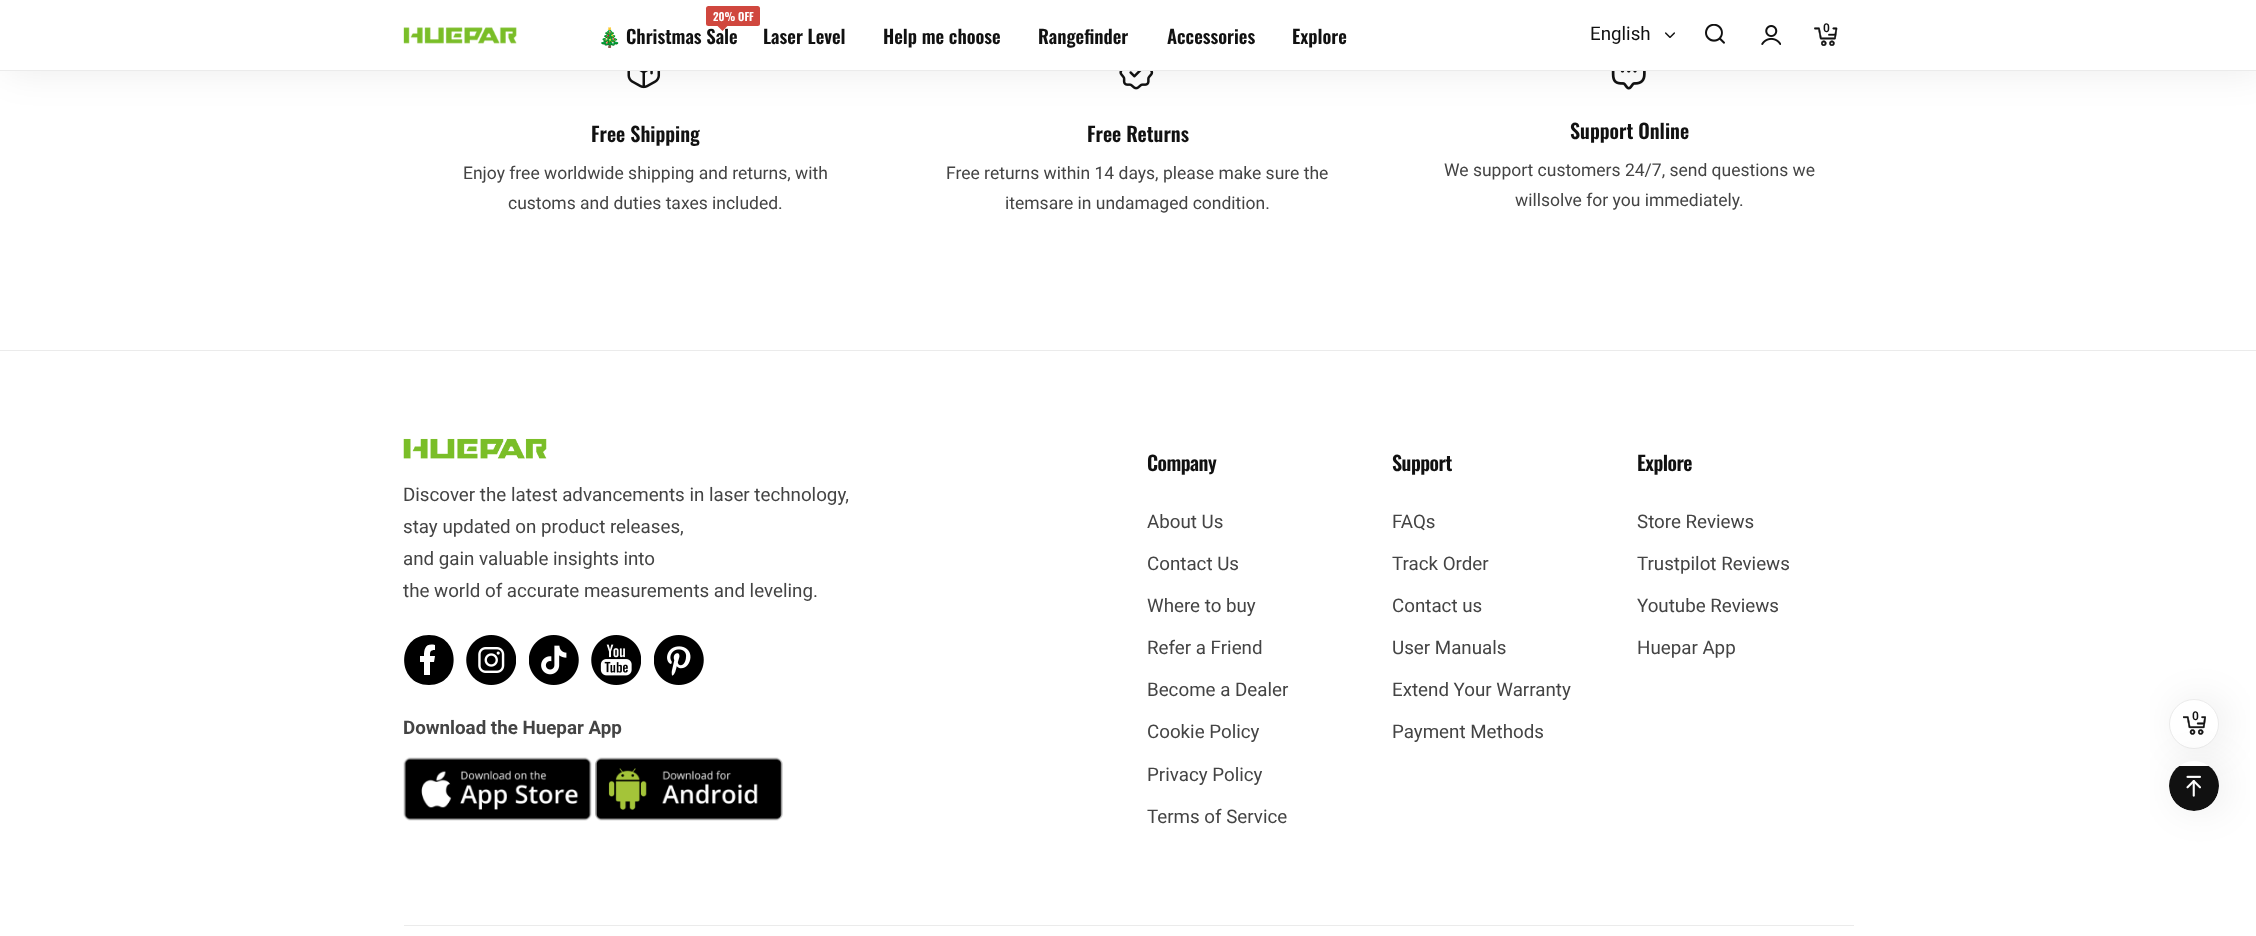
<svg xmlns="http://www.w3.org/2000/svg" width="2256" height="936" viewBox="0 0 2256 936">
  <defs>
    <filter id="blur1" x="-50%" y="-200%" width="200%" height="500%"><feGaussianBlur stdDeviation="19"/></filter>
    <clipPath id="clip1"><rect x="2169" y="761" width="50" height="50" rx="25"/></clipPath>
  </defs>
  <rect width="100%" height="100%" fill="#ffffff"/>
  <image x="627" y="71" width="34" height="18" href="img6.png"/>
  <image x="1119" y="71" width="35" height="19" href="img7.png"/>
  <image x="1611" y="71" width="35" height="19" href="img8.png"/>
  <rect x="6" y="0" width="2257" height="71" fill="#000000" fill-opacity="0.08" filter="url(#blur1)"/>
  <rect x="0" y="70" width="2256" height="1" fill="#ebebeb"/>
  <rect x="0" y="0" width="2256" height="70" fill="#ffffff"/>
  <image x="403" y="27" width="114" height="17" href="img1.png"/>
  <rect x="706" y="6" width="54" height="20" rx="2.5" fill="#d0473e"/>
  <text x="713" y="21" font-family="Oswald" font-size="11" font-weight="600" fill="#ffffff">20% OFF</text>
  <text x="626" y="44" font-family="Oswald" font-size="18.75" font-weight="600" fill="#111111">Christmas Sale</text>
  <path d="M717.5 26H727.5L722.5 31Z" fill="#d0473e"/>
  <text x="598" y="44" font-family="Noto Color Emoji" font-size="18.75" font-weight="bold" fill="#111111">🎄</text>
  <text x="763" y="44" font-family="Oswald" font-size="18.75" font-weight="600" fill="#111111">Laser Level</text>
  <text x="883" y="44" font-family="Oswald" font-size="18.75" font-weight="600" fill="#111111">Help me choose</text>
  <text x="1038" y="44" font-family="Oswald" font-size="18.75" font-weight="600" fill="#111111">Rangefinder</text>
  <text x="1167" y="44" font-family="Oswald" font-size="18.75" font-weight="600" fill="#111111">Accessories</text>
  <text x="1292" y="44" font-family="Oswald" font-size="18.75" font-weight="600" fill="#111111">Explore</text>
  <text x="1590" y="40" font-family="Roboto" font-size="18.75" fill="#111111">English</text>
  <image x="1665" y="32" width="10" height="6" href="img2.png"/>
  <image x="1705" y="24" width="20" height="20" href="img3.png"/>
  <image x="1761" y="25" width="20" height="20" href="img4.png"/>
  <image x="1814" y="27" width="24" height="19" href="img5.png"/>
  <text x="1823" y="32" font-family="Roboto" font-size="12" font-weight="600" fill="#111111">0</text>
  <text x="591" y="142" font-family="Oswald" font-size="20" font-weight="600" fill="#111111">Free Shipping</text>
  <text x="463" y="179" font-family="Roboto" font-size="17.5" fill="#444444">Enjoy free worldwide shipping and returns, with</text>
  <text x="508" y="209" font-family="Roboto" font-size="17.5" fill="#444444">customs and duties taxes included.</text>
  <text x="1087" y="142" font-family="Oswald" font-size="20" font-weight="600" fill="#111111">Free Returns</text>
  <text x="946" y="179" font-family="Roboto" font-size="17.5" fill="#444444">Free returns within 14 days, please make sure the</text>
  <text x="1005" y="209" font-family="Roboto" font-size="17.5" fill="#444444">itemsare in undamaged condition.</text>
  <text x="1570" y="139" font-family="Oswald" font-size="20" font-weight="600" fill="#111111">Support Online</text>
  <text x="1444" y="176" font-family="Roboto" font-size="17.5" fill="#444444">We support customers 24/7, send questions we</text>
  <text x="1515" y="206" font-family="Roboto" font-size="17.5" fill="#444444">willsolve for you immediately.</text>
  <rect x="0" y="350" width="2256" height="1" fill="#ebebeb"/>
  <image x="403" y="438" width="144" height="21" href="img9.png"/>
  <text x="403" y="501" font-family="Roboto" font-size="18.75" fill="#444444">Discover the latest advancements in laser technology,</text>
  <text x="403" y="533" font-family="Roboto" font-size="18.75" fill="#444444">stay updated on product releases,</text>
  <text x="403" y="565" font-family="Roboto" font-size="18.75" fill="#444444">and gain valuable insights into</text>
  <text x="403" y="597" font-family="Roboto" font-size="18.75" fill="#444444">the world of accurate measurements and leveling.</text>
  <path d="M429 635C396 635 396 685 429 685C462 685 462 635 429 635ZM435 650C430 650 430 652 430 656H435L434 662H430V675H424V662H420V656H424C424 648 426 643 435 645Z" fill="#000000"/>
  <image x="466" y="635" width="50" height="50" href="img10.png"/>
  <image x="529" y="635" width="50" height="50" href="img11.png"/>
  <image x="591" y="635" width="50" height="50" href="img12.png"/>
  <image x="654" y="635" width="50" height="50" href="img13.png"/>
  <text x="403" y="734" font-family="Roboto" font-size="18.75" font-weight="bold" fill="#444444">Download the Huepar App</text>
  <image x="403" y="757" width="189" height="64" href="img14.png"/>
  <image x="595" y="757" width="188" height="64" href="img15.png"/>
  <text x="1147" y="471" font-family="Oswald" font-size="20" font-weight="600" letter-spacing="-0.5" fill="#111111">Company</text>
  <text x="1147" y="528" font-family="Roboto" font-size="18.75" fill="#444444">About Us</text>
  <text x="1147" y="570" font-family="Roboto" font-size="18.75" fill="#444444">Contact Us</text>
  <text x="1147" y="612" font-family="Roboto" font-size="18.75" fill="#444444">Where to buy</text>
  <text x="1147" y="654" font-family="Roboto" font-size="18.75" fill="#444444">Refer a Friend</text>
  <text x="1147" y="696" font-family="Roboto" font-size="18.75" fill="#444444">Become a Dealer</text>
  <text x="1147" y="738" font-family="Roboto" font-size="18.75" fill="#444444">Cookie Policy</text>
  <text x="1147" y="781" font-family="Roboto" font-size="18.75" fill="#444444">Privacy Policy</text>
  <text x="1147" y="823" font-family="Roboto" font-size="18.75" fill="#444444">Terms of Service</text>
  <text x="1392" y="471" font-family="Oswald" font-size="20" font-weight="600" letter-spacing="-0.5" fill="#111111">Support</text>
  <text x="1392" y="528" font-family="Roboto" font-size="18.75" fill="#444444">FAQs</text>
  <text x="1392" y="570" font-family="Roboto" font-size="18.75" fill="#444444">Track Order</text>
  <text x="1392" y="612" font-family="Roboto" font-size="18.75" fill="#444444">Contact us</text>
  <text x="1392" y="654" font-family="Roboto" font-size="18.75" fill="#444444">User Manuals</text>
  <text x="1392" y="696" font-family="Roboto" font-size="18.75" fill="#444444">Extend Your Warranty</text>
  <text x="1392" y="738" font-family="Roboto" font-size="18.75" fill="#444444">Payment Methods</text>
  <text x="1637" y="471" font-family="Oswald" font-size="20" font-weight="600" letter-spacing="-0.5" fill="#111111">Explore</text>
  <text x="1637" y="528" font-family="Roboto" font-size="18.75" fill="#444444">Store Reviews</text>
  <text x="1637" y="570" font-family="Roboto" font-size="18.75" fill="#444444">Trustpilot Reviews</text>
  <text x="1637" y="612" font-family="Roboto" font-size="18.75" fill="#444444">Youtube Reviews</text>
  <text x="1637" y="654" font-family="Roboto" font-size="18.75" fill="#444444">Huepar App</text>
  <rect x="404" y="925" width="1450" height="1" fill="#ebebeb"/>
  <rect x="2175" y="699" width="50" height="50" rx="25" fill="#000000" fill-opacity="0.08" filter="url(#blur1)"/>
  <circle cx="2194" cy="724" r="24.5" fill="#ffffff" stroke="#ebebeb"/>
  <image x="2183" y="716" width="23" height="19" href="img17.png"/>
  <rect x="2175" y="761" width="50" height="50" rx="25" fill="#000000" fill-opacity="0.08" filter="url(#blur1)"/>
  <circle cx="2194" cy="786" r="25" fill="#ffffff"/>
  <g clip-path="url(#clip1)">
    <path d="M2169 766H2219V786C2219 800 2208 811 2194 811C2180 811 2169 800 2169 786Z" fill="#111111"/>
  </g>
  <image x="2186" y="775" width="15" height="22" href="img16.png"/>
  <text x="2192" y="720" font-family="Roboto" font-size="12" font-weight="600" fill="#111111">0</text>
</svg>
